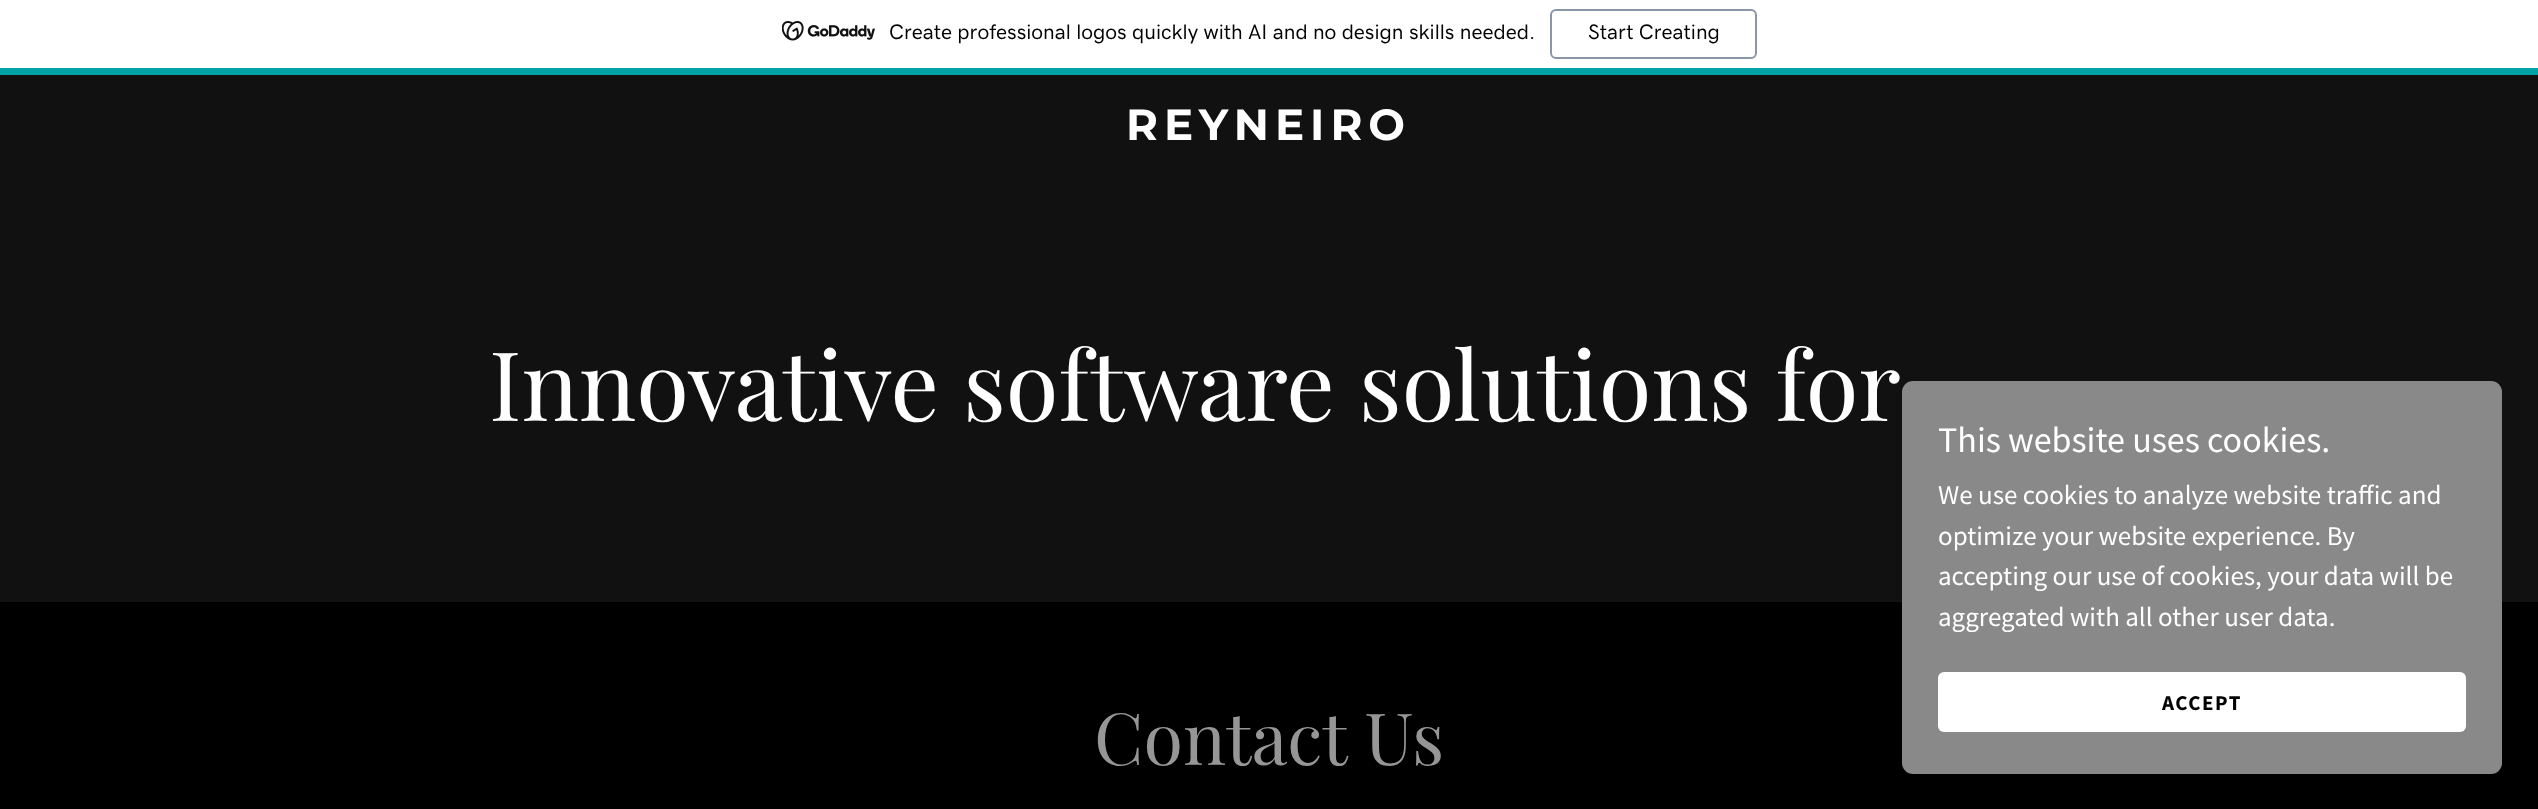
<svg xmlns="http://www.w3.org/2000/svg" width="2538" height="809" viewBox="0 0 2538 809">
  <rect width="100%" height="100%" fill="#000000"/>
  <rect x="0" y="0" width="2538" height="68" fill="#ffffff"/>
  <rect x="0" y="68" width="2538" height="7" fill="#00a4a6"/>
  <image x="782" y="21" width="93" height="20" href="img1.png"/>
  <text x="889" y="39" font-family="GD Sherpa" font-size="21" font-weight="500" fill="#000000">Create professional logos quickly with AI and no design skills needed.</text>
  <rect x="1551" y="10" width="205" height="48" rx="5" fill="none" stroke="#8995a9" stroke-width="2"/>
  <text x="1588" y="39" font-family="GD Sherpa" font-size="21" font-weight="500" fill="#000000">Start Creating</text>
  <rect x="0" y="75" width="2538" height="527" fill="#111111"/>
  <text x="1126" y="140" font-family="Montserrat" font-size="43.5" font-weight="bold" letter-spacing="6" fill="#ffffff">REYNEIRO</text>
  <text x="489" y="421" font-family="Playfair Display" font-size="96" fill="#ffffff">Innovative software solutions for</text>
  <rect x="1902" y="381" width="600" height="393" rx="11" fill="#898989"/>
  <text x="1938" y="452" font-family="Source Sans Pro" font-size="36" fill="#ffffff">This website uses cookies.</text>
  <text x="1938" y="504" font-family="Source Sans Pro" font-size="27" fill="#ffffff">We use cookies to analyze website traffic and</text>
  <text x="1938" y="545" font-family="Source Sans Pro" font-size="27" fill="#ffffff">optimize your website experience. By</text>
  <text x="1938" y="585" font-family="Source Sans Pro" font-size="27" fill="#ffffff">accepting our use of cookies, your data will be</text>
  <text x="1938" y="626" font-family="Source Sans Pro" font-size="27" fill="#ffffff">aggregated with all other user data.</text>
  <rect x="1938" y="672" width="528" height="60" rx="6" fill="#ffffff"/>
  <text x="2162" y="710" font-family="Source Sans Pro" font-size="21" font-weight="bold" letter-spacing="1.5" fill="#000000">ACCEPT</text>
  <text x="1094" y="765" font-family="Playfair Display" font-size="72" fill="#969696">Contact Us</text>
</svg>
